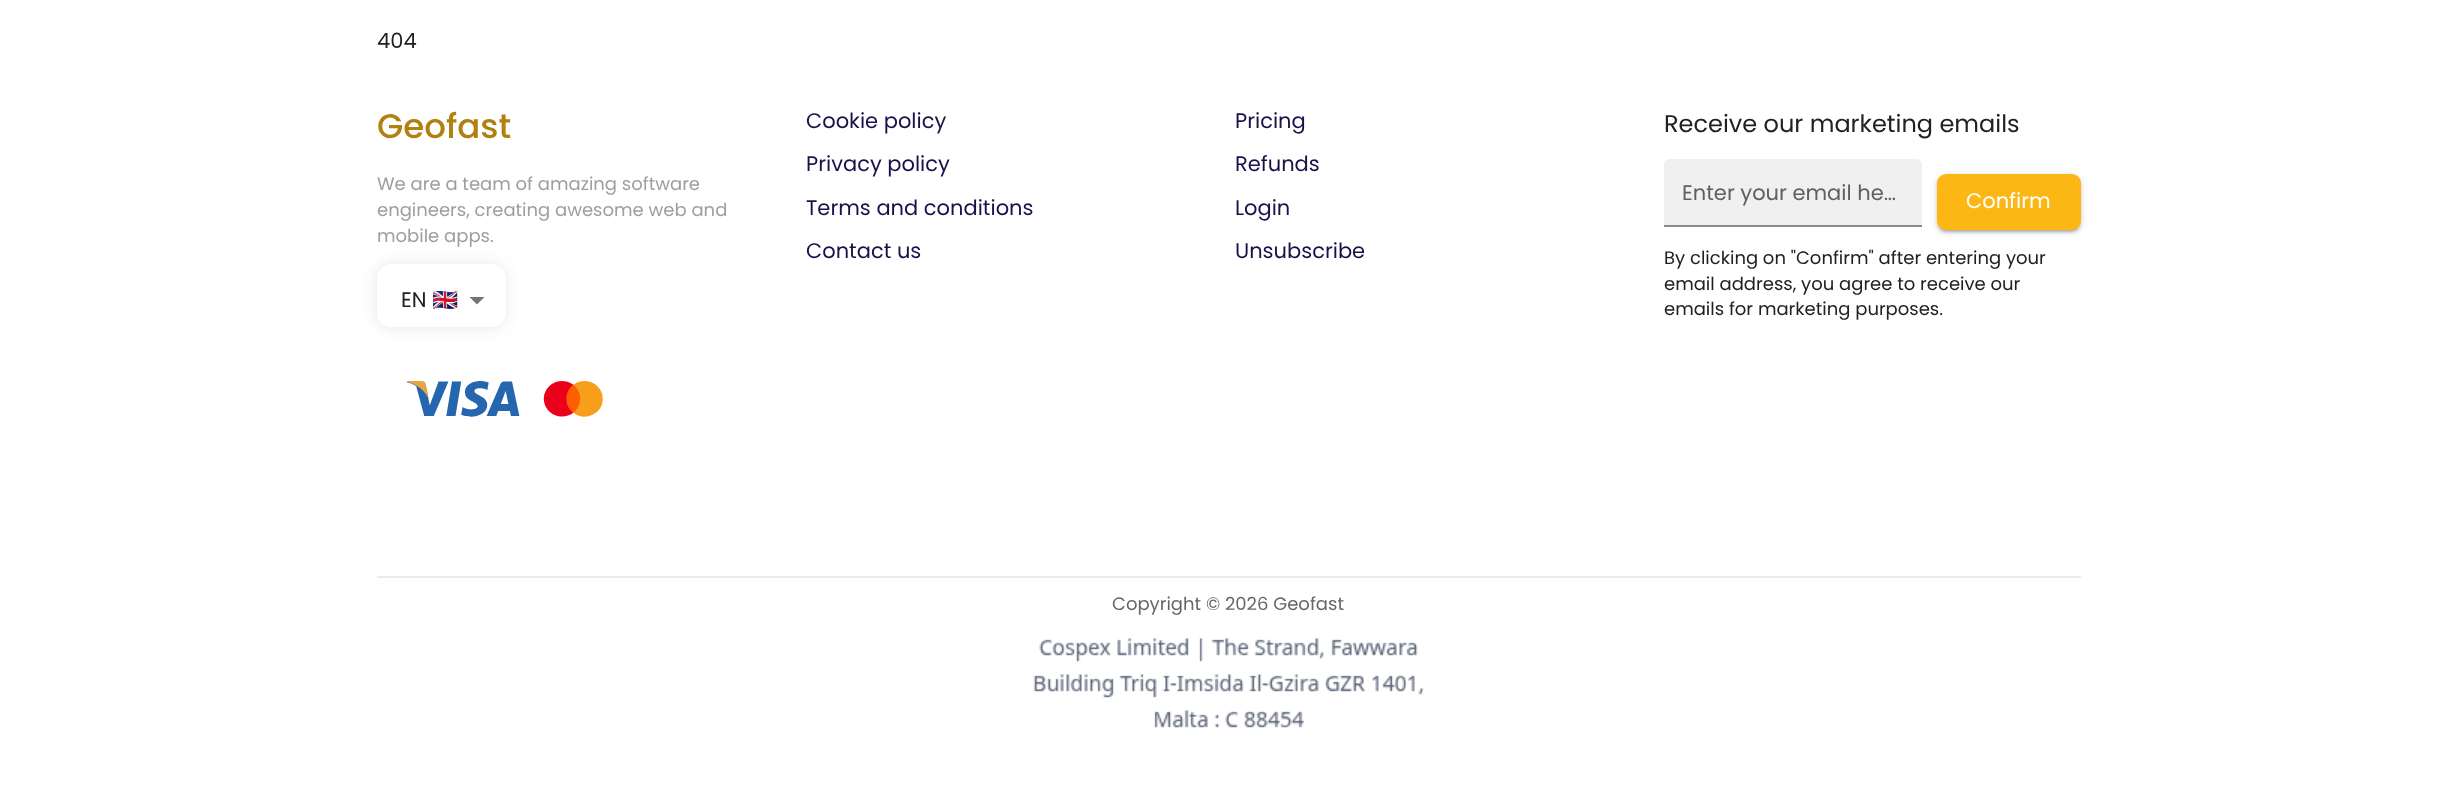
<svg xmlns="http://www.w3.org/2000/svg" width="2457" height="786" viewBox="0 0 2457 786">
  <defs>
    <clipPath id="clip1"><path d="M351 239H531V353H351ZM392 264H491C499.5 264 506 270.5 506 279V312C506 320.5 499.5 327 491 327H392C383.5 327 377 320.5 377 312V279C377 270.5 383.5 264 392 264Z" clip-rule="evenodd"/></clipPath>
    <filter id="blur1" x="-50%" y="-200%" width="200%" height="500%"><feGaussianBlur stdDeviation="7.5"/></filter>
    <filter id="blur2" x="-50%" y="-200%" width="200%" height="500%"><feGaussianBlur stdDeviation="4"/></filter>
    <filter id="blur3" x="-50%" y="-200%" width="200%" height="500%"><feGaussianBlur stdDeviation="1.5"/></filter>
    <filter id="blur4" x="-50%" y="-200%" width="200%" height="500%"><feGaussianBlur stdDeviation="1"/></filter>
  </defs>
  <rect width="100%" height="100%" fill="#ffffff"/>
  <text x="377" y="48" font-family="Poppins" font-size="21" fill="#212121">404</text>
  <text x="377" y="138" font-family="Poppins" font-size="34" font-weight="500" fill="#b1800e">Geofast</text>
  <text x="377" y="190" font-family="Poppins" font-size="18" fill="#9e9e9e">We are a team of amazing software</text>
  <text x="377" y="216" font-family="Poppins" font-size="18" fill="#9e9e9e">engineers, creating awesome web and</text>
  <text x="377" y="242" font-family="Poppins" font-size="18" fill="#9e9e9e">mobile apps.</text>
  <path d="M469.5 297L477 304.5L484.5 297Z" fill="#757575"/>
  <g clip-path="url(#clip1)">
    <rect x="375" y="263" width="132" height="66" rx="17" fill="#000000" fill-opacity="0.08" filter="url(#blur1)"/>
  </g>
  <text x="401" y="307" font-family="Poppins" font-size="21" fill="#212121">EN</text>
  <text x="432" y="307" font-family="Noto Color Emoji" font-size="21" fill="#212121">🇬🇧</text>
  <image x="407" y="381" width="196" height="36" href="img1.png"/>
  <text x="806" y="128" font-family="Poppins" font-size="21" fill="#1b114a">Cookie policy</text>
  <text x="806" y="171" font-family="Poppins" font-size="21" fill="#1b114a">Privacy policy</text>
  <text x="806" y="215" font-family="Poppins" font-size="21" fill="#1b114a">Terms and conditions</text>
  <text x="806" y="258" font-family="Poppins" font-size="21" fill="#1b114a">Contact us</text>
  <text x="1235" y="128" font-family="Poppins" font-size="21" fill="#1b114a">Pricing</text>
  <text x="1235" y="171" font-family="Poppins" font-size="21" fill="#1b114a">Refunds</text>
  <text x="1235" y="215" font-family="Poppins" font-size="21" fill="#1b114a">Login</text>
  <text x="1235" y="258" font-family="Poppins" font-size="21" fill="#1b114a">Unsubscribe</text>
  <text x="1664" y="132" font-family="Poppins" font-size="24" fill="#212121">Receive our marketing emails</text>
  <path d="M1670 159H1916C1919.5 159 1922 161.5 1922 165V227H1664V165C1664 161.5 1666.5 159 1670 159Z" fill="#f0f0f0"/>
  <rect x="1664" y="225" width="258" height="2" fill="#8b8b8b"/>
  <text x="1682" y="200" font-family="Poppins" font-size="21" fill="#606060">Enter your email he…</text>
  <rect x="1937" y="176" width="144" height="55" rx="9" fill="#000000" fill-opacity="0.12" filter="url(#blur2)"/>
  <rect x="1937" y="177" width="144" height="56" rx="9" fill="#000000" fill-opacity="0.14" filter="url(#blur3)"/>
  <rect x="1940" y="182" width="138" height="49" rx="6" fill="#000000" fill-opacity="0.2" filter="url(#blur4)"/>
  <rect x="1937" y="174" width="144" height="56" rx="9" fill="#fdb714"/>
  <text x="1966" y="208" font-family="Poppins" font-size="21" fill="#ffffff">Confirm</text>
  <text x="1664" y="264" font-family="Poppins" font-size="18" fill="#212121">By clicking on "Confirm" after entering your</text>
  <text x="1664" y="290" font-family="Poppins" font-size="18" fill="#212121">email address, you agree to receive our</text>
  <text x="1664" y="315" font-family="Poppins" font-size="18" fill="#212121">emails for marketing purposes.</text>
  <rect x="377" y="576" width="1704" height="2" fill="#ebebeb"/>
  <text x="1112" y="610" font-family="Poppins" font-size="18" fill="#666666">Copyright © 2026 Geofast</text>
  <image x="1033" y="638" width="391" height="90" href="img2.png"/>
</svg>
